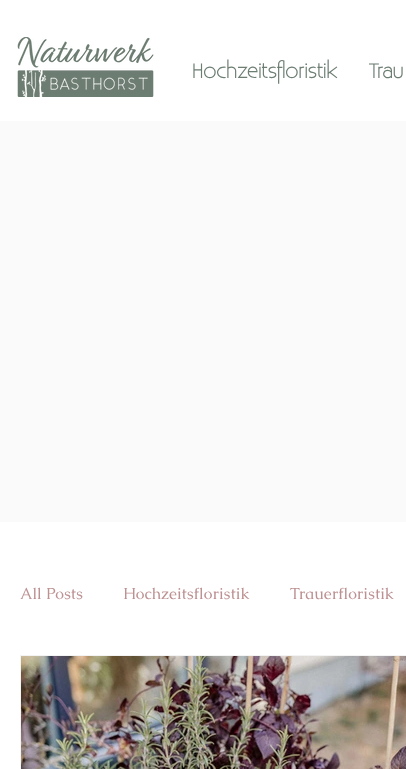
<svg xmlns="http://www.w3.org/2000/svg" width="406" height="769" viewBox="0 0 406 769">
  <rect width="100%" height="100%" fill="#ffffff"/>
  <image x="17" y="37" width="137" height="60" href="img1.png"/>
  <text x="192" y="78" font-family="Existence" font-size="20" font-weight="bold" fill="#6c7d72">Hochzeitsfloristik</text>
  <text x="368" y="78" font-family="Existence" font-size="20" font-weight="bold" fill="#6c7d72">Trau</text>
  <rect x="0" y="121" width="406" height="401" fill="#fafafa"/>
  <text x="20" y="599" font-family="Caudex" font-size="16" fill="#bd9192">All Posts</text>
  <text x="123" y="599" font-family="Caudex" font-size="16" fill="#bd9192">Hochzeitsfloristik</text>
  <text x="290" y="599" font-family="Caudex" font-size="16" fill="#bd9192">Trauerfloristik</text>
  <rect x="20.5" y="655.5" width="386" height="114" fill="none" stroke="#f4f3f3"/>
  <image x="21" y="656" width="385" height="113" href="img2.png"/>
</svg>
